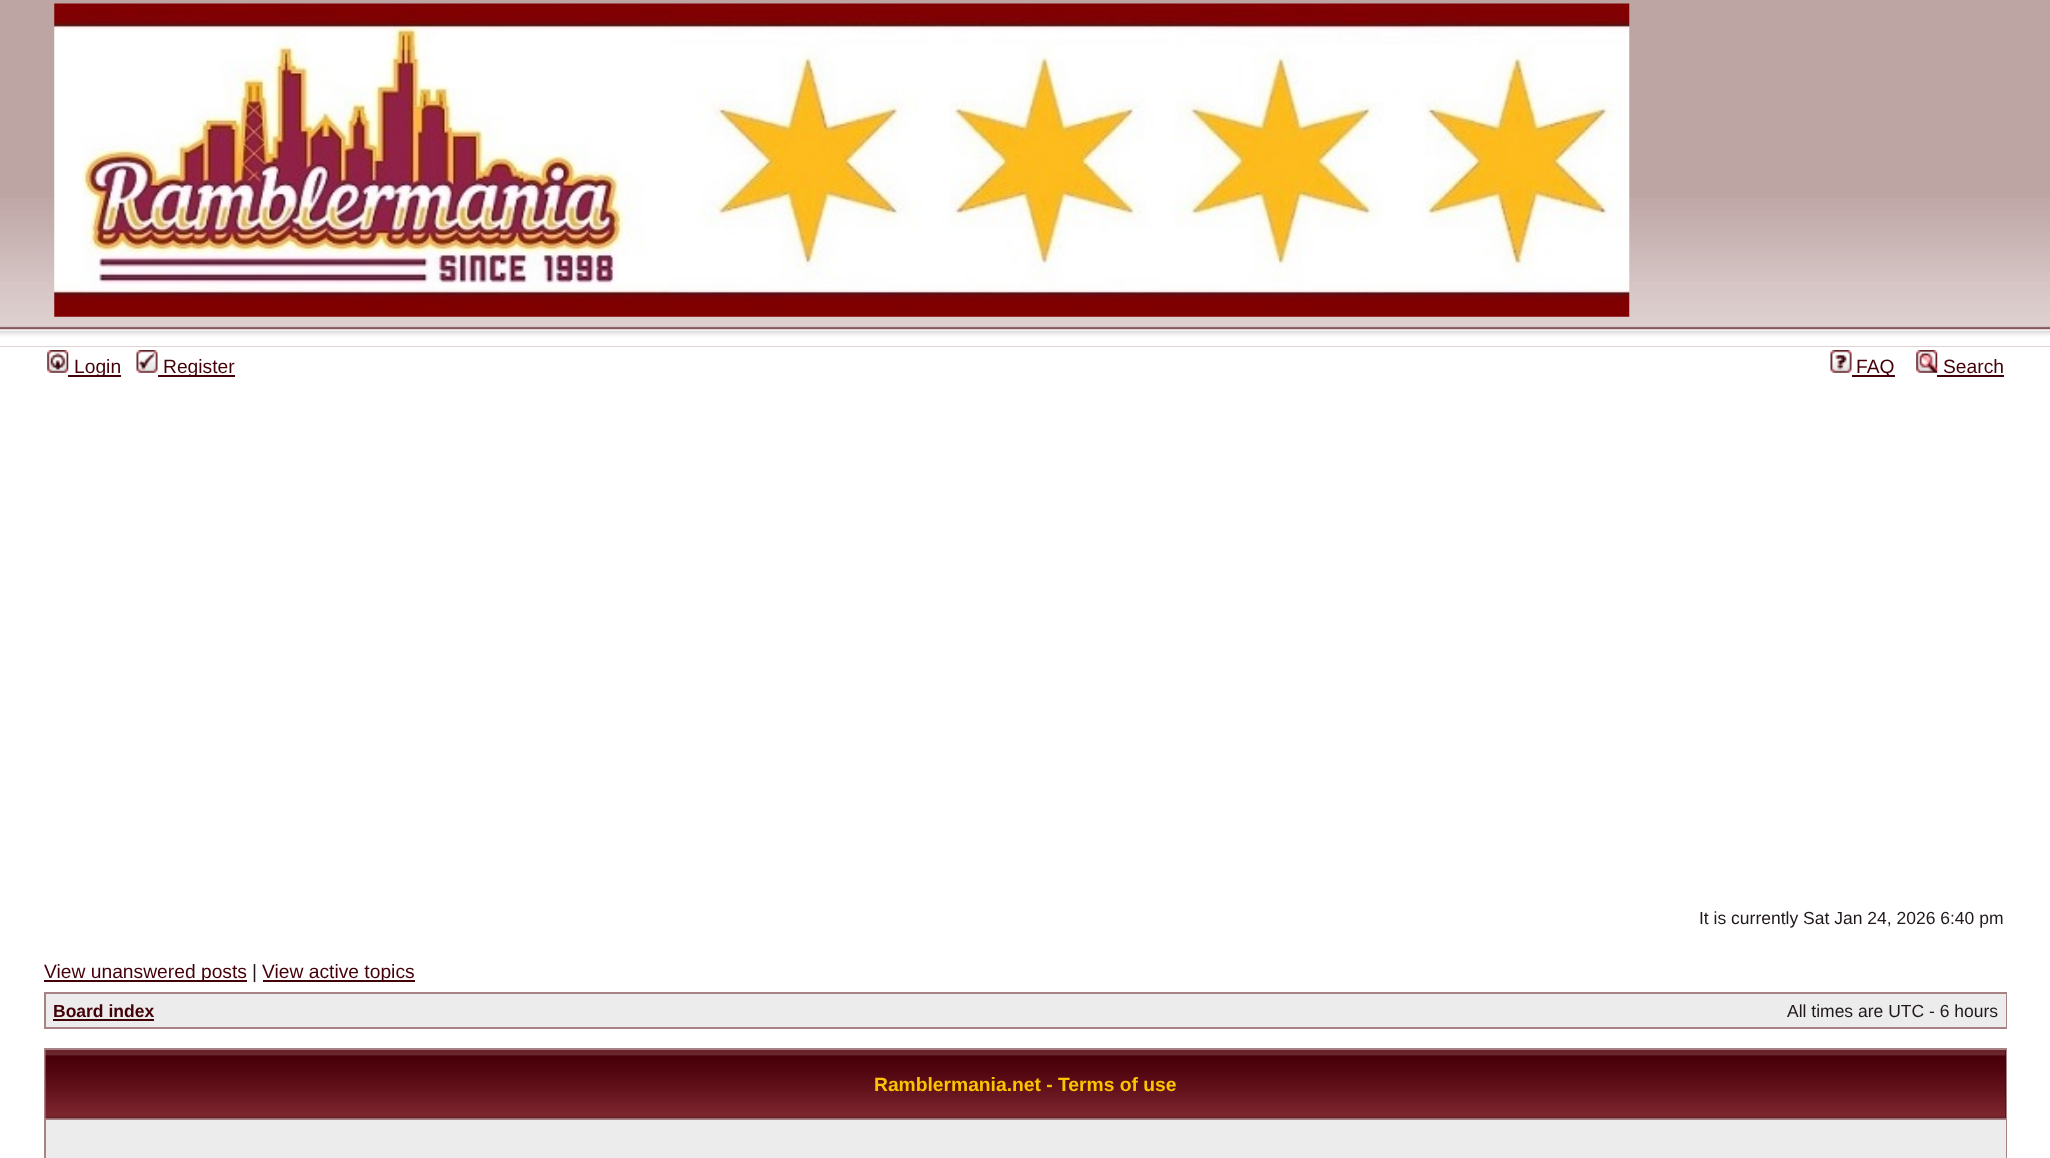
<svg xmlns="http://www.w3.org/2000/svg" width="2050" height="1158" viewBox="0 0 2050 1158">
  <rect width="100%" height="100%" fill="#ffffff"/>
  <rect x="0" y="0" width="2050" height="347" fill="#bda5a4"/>
  <image x="0" y="198" width="2050" height="149" href="img1.png"/>
  <image x="54" y="3" width="1576" height="314" href="img2.png"/>
  <image x="47" y="350" width="22" height="23" href="img3.png"/>
  <rect x="68" y="375" width="53" height="2" fill="#440008"/>
  <text x="74" y="373" font-family="Liberation Sans" font-size="19.25" fill="#440008">Login</text>
  <image x="136" y="350" width="22" height="23" href="img4.png"/>
  <rect x="158" y="375" width="77" height="2" fill="#440008"/>
  <text x="163" y="373" font-family="Liberation Sans" font-size="19.25" fill="#440008">Register</text>
  <image x="1830" y="350" width="22" height="23" href="img5.png"/>
  <rect x="1852" y="375" width="43" height="2" fill="#440008"/>
  <text x="1856" y="373" font-family="Liberation Sans" font-size="19.25" fill="#440008">FAQ</text>
  <image x="1916" y="350" width="22" height="23" href="img6.png"/>
  <text x="1943" y="373" font-family="Liberation Sans" font-size="19.25" fill="#440008">Search</text>
  <rect x="1937" y="375" width="67" height="2" fill="#440008"/>
  <text x="1699" y="924" font-family="Liberation Sans" font-size="17.5" fill="#211919">It is currently Sat Jan 24, 2026 6:40 pm</text>
  <rect x="44" y="980" width="203" height="2" fill="#440008"/>
  <text x="44" y="978" font-family="Liberation Sans" font-size="19.25" fill="#440008">View unanswered posts</text>
  <text x="252" y="978" font-family="Liberation Sans" font-size="19.25" fill="#211919">|</text>
  <rect x="263" y="980" width="152" height="2" fill="#440008"/>
  <text x="262" y="978" font-family="Liberation Sans" font-size="19.25" fill="#440008">View active topics</text>
  <rect x="44" y="992" width="1963" height="37" fill="#a78385"/>
  <rect x="46" y="994" width="1960" height="33" fill="#ececec"/>
  <text x="53" y="1017" font-family="Liberation Sans" font-size="17.5" font-weight="bold" fill="#440008">Board index</text>
  <rect x="53" y="1019" width="101" height="2" fill="#440008"/>
  <text x="1787" y="1017" font-family="Liberation Sans" font-size="17.5" fill="#211919">All times are UTC - 6 hours</text>
  <rect x="44" y="1048" width="1963" height="110" fill="#a78385"/>
  <rect x="2005" y="1050" width="1" height="68" fill="#450008"/>
  <image x="45" y="1050" width="1961" height="69" href="img7.png"/>
  <text x="874" y="1091" font-family="Liberation Sans" font-size="19.25" font-weight="bold" fill="#fbc300">Ramblermania.net - Terms of use</text>
  <rect x="46" y="1120" width="1960" height="38" fill="#ececec"/>
</svg>
